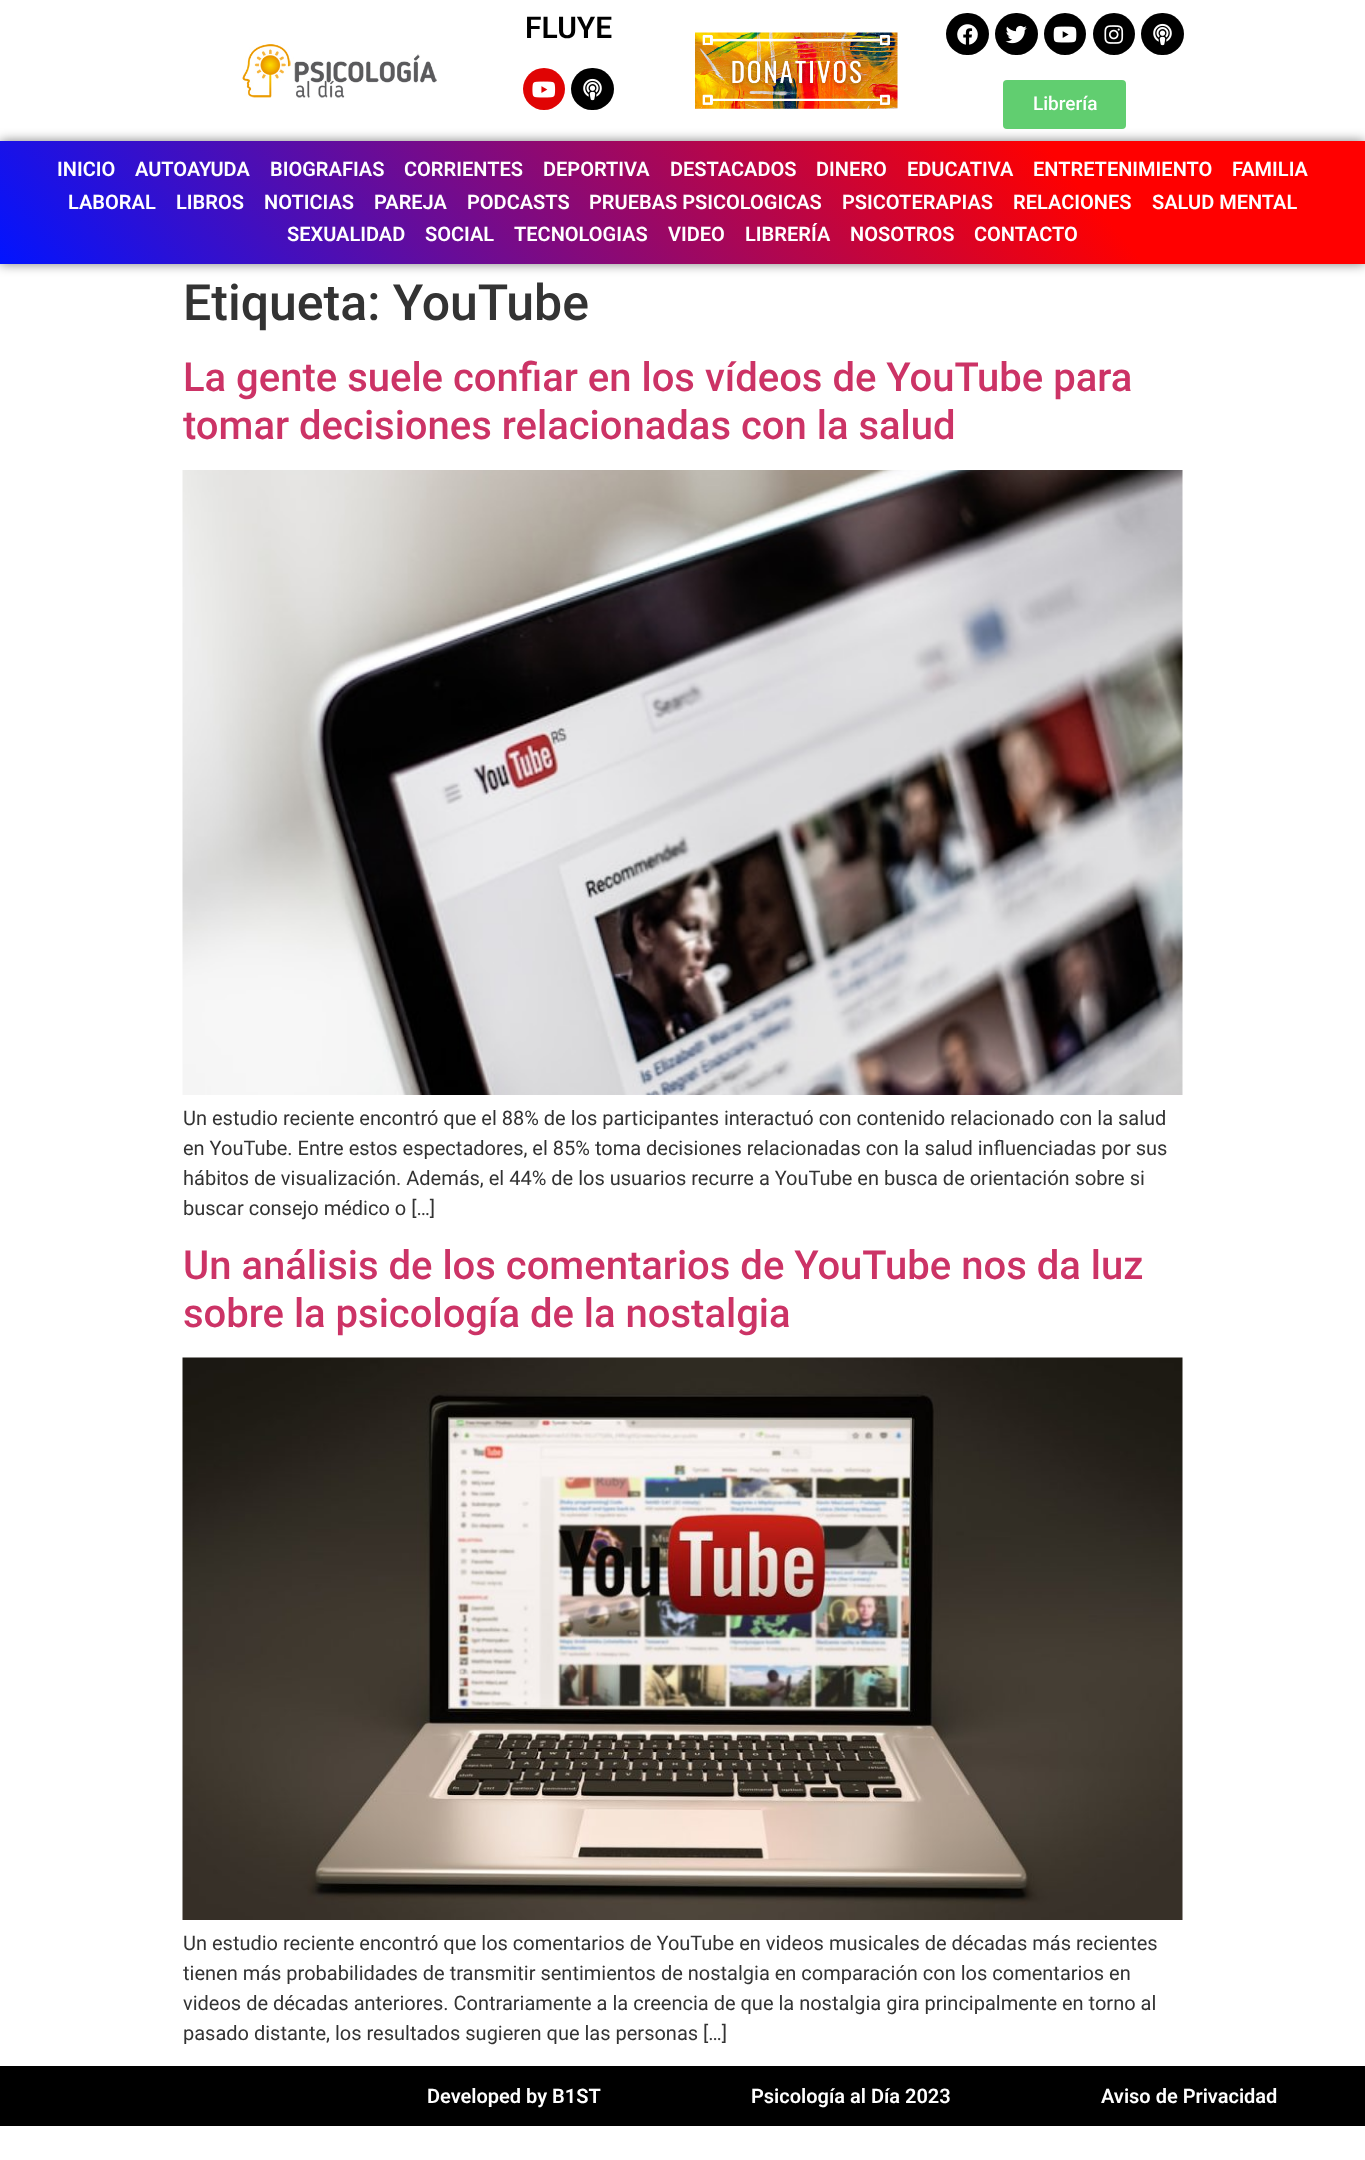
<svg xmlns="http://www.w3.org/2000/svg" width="1365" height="2160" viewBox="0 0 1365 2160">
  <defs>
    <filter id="blur1" x="-50%" y="-200%" width="200%" height="500%"><feGaussianBlur stdDeviation="6"/></filter>
    <linearGradient id="g1" gradientUnits="userSpaceOnUse" x1="1113" y1="-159" x2="252" y2="564"><stop offset="0.22" stop-color="#ff0000"/><stop offset="1" stop-color="#0214ff"/></linearGradient>
  </defs>
  <rect width="100%" height="100%" fill="#ffffff"/>
  <text x="525" y="38" font-family="Roboto" font-size="30" font-weight="600" fill="#000000">FLUYE</text>
  <circle cx="544" cy="89" r="21" fill="#e00404"/>
  <image x="532" y="81" width="24" height="17" href="img1.png"/>
  <rect x="571" y="68" width="43" height="42" rx="21" fill="#000000"/>
  <image x="583" y="78" width="19" height="23" href="img2.png"/>
  <image x="242" y="44" width="195" height="54" href="img3.png"/>
  <image x="695" y="32" width="203" height="77" href="img4.png"/>
  <rect x="946" y="13" width="43" height="42" rx="21" fill="#000000"/>
  <image x="957" y="24" width="21" height="21" href="img5.png"/>
  <rect x="995" y="13" width="43" height="42" rx="21" fill="#000000"/>
  <image x="1005" y="25" width="22" height="19" href="img6.png"/>
  <circle cx="1065" cy="34" r="21" fill="#000000"/>
  <image x="1053" y="26" width="24" height="17" href="img7.png"/>
  <circle cx="1114" cy="34" r="21" fill="#000000"/>
  <image x="1104" y="25" width="20" height="19" href="img8.png"/>
  <rect x="1141" y="13" width="43" height="42" rx="21" fill="#000000"/>
  <image x="1153" y="23" width="19" height="23" href="img2.png"/>
  <rect x="1003" y="80" width="123" height="49" rx="4" fill="#61ce70"/>
  <text x="1033" y="110" font-family="Roboto" font-size="19" font-weight="500" fill="#ffffff">Librería</text>
  <rect x="0" y="141" width="1365" height="123" fill="#000000" fill-opacity="0.5" filter="url(#blur1)"/>
  <rect x="0" y="141" width="1365" height="123" fill="url(#g1)"/>
  <text x="57" y="176" font-family="Roboto" font-size="20" font-weight="600" fill="#ffffff">INICIO</text>
  <text x="135" y="176" font-family="Roboto" font-size="20" font-weight="600" fill="#ffffff">AUTOAYUDA</text>
  <text x="270" y="176" font-family="Roboto" font-size="20" font-weight="600" fill="#ffffff">BIOGRAFIAS</text>
  <text x="404" y="176" font-family="Roboto" font-size="20" font-weight="600" fill="#ffffff">CORRIENTES</text>
  <text x="543" y="176" font-family="Roboto" font-size="20" font-weight="600" fill="#ffffff">DEPORTIVA</text>
  <text x="670" y="176" font-family="Roboto" font-size="20" font-weight="600" fill="#ffffff">DESTACADOS</text>
  <text x="816" y="176" font-family="Roboto" font-size="20" font-weight="600" fill="#ffffff">DINERO</text>
  <text x="907" y="176" font-family="Roboto" font-size="20" font-weight="600" fill="#ffffff">EDUCATIVA</text>
  <text x="1033" y="176" font-family="Roboto" font-size="20" font-weight="600" fill="#ffffff">ENTRETENIMIENTO</text>
  <text x="1232" y="176" font-family="Roboto" font-size="20" font-weight="600" fill="#ffffff">FAMILIA</text>
  <text x="68" y="209" font-family="Roboto" font-size="20" font-weight="600" fill="#ffffff">LABORAL</text>
  <text x="176" y="209" font-family="Roboto" font-size="20" font-weight="600" fill="#ffffff">LIBROS</text>
  <text x="264" y="209" font-family="Roboto" font-size="20" font-weight="600" fill="#ffffff">NOTICIAS</text>
  <text x="374" y="209" font-family="Roboto" font-size="20" font-weight="600" fill="#ffffff">PAREJA</text>
  <text x="467" y="209" font-family="Roboto" font-size="20" font-weight="600" fill="#ffffff">PODCASTS</text>
  <text x="589" y="209" font-family="Roboto" font-size="20" font-weight="600" fill="#ffffff">PRUEBAS PSICOLOGICAS</text>
  <text x="842" y="209" font-family="Roboto" font-size="20" font-weight="600" fill="#ffffff">PSICOTERAPIAS</text>
  <text x="1013" y="209" font-family="Roboto" font-size="20" font-weight="600" fill="#ffffff">RELACIONES</text>
  <text x="1152" y="209" font-family="Roboto" font-size="20" font-weight="600" fill="#ffffff">SALUD MENTAL</text>
  <text x="287" y="241" font-family="Roboto" font-size="20" font-weight="600" fill="#ffffff">SEXUALIDAD</text>
  <text x="425" y="241" font-family="Roboto" font-size="20" font-weight="600" fill="#ffffff">SOCIAL</text>
  <text x="514" y="241" font-family="Roboto" font-size="20" font-weight="600" fill="#ffffff">TECNOLOGIAS</text>
  <text x="668" y="241" font-family="Roboto" font-size="20" font-weight="600" fill="#ffffff">VIDEO</text>
  <text x="745" y="241" font-family="Roboto" font-size="20" font-weight="600" fill="#ffffff">LIBRERÍA</text>
  <text x="850" y="241" font-family="Roboto" font-size="20" font-weight="600" fill="#ffffff">NOSOTROS</text>
  <text x="974" y="241" font-family="Roboto" font-size="20" font-weight="600" fill="#ffffff">CONTACTO</text>
  <text x="183" y="320" font-family="Roboto" font-size="50" font-weight="500" fill="#333333">Etiqueta: YouTube</text>
  <text x="183" y="391" font-family="Roboto" font-size="40" font-weight="500" fill="#cc3366">La gente suele confiar en los vídeos de YouTube para</text>
  <text x="183" y="439" font-family="Roboto" font-size="40" font-weight="500" fill="#cc3366">tomar decisiones relacionadas con la salud</text>
  <image x="182" y="470" width="1001" height="625" href="img9.png"/>
  <text x="183" y="1125" font-family="Roboto" font-size="20" fill="#333333">Un estudio reciente encontró que el 88% de los participantes interactuó con contenido relacionado con la salud</text>
  <text x="183" y="1155" font-family="Roboto" font-size="20" fill="#333333">en YouTube. Entre estos espectadores, el 85% toma decisiones relacionadas con la salud influenciadas por sus</text>
  <text x="183" y="1185" font-family="Roboto" font-size="20" fill="#333333">hábitos de visualización. Además, el 44% de los usuarios recurre a YouTube en busca de orientación sobre si</text>
  <text x="183" y="1215" font-family="Roboto" font-size="20" fill="#333333">buscar consejo médico o […]</text>
  <text x="183" y="1279" font-family="Roboto" font-size="40" font-weight="500" fill="#cc3366">Un análisis de los comentarios de YouTube nos da luz</text>
  <text x="183" y="1327" font-family="Roboto" font-size="40" font-weight="500" fill="#cc3366">sobre la psicología de la nostalgia</text>
  <image x="182" y="1357" width="1001" height="563" href="img10.png"/>
  <text x="183" y="1950" font-family="Roboto" font-size="20" fill="#333333">Un estudio reciente encontró que los comentarios de YouTube en videos musicales de décadas más recientes</text>
  <text x="183" y="1980" font-family="Roboto" font-size="20" fill="#333333">tienen más probabilidades de transmitir sentimientos de nostalgia en comparación con los comentarios en</text>
  <text x="183" y="2010" font-family="Roboto" font-size="20" fill="#333333">videos de décadas anteriores. Contrariamente a la creencia de que la nostalgia gira principalmente en torno al</text>
  <text x="183" y="2040" font-family="Roboto" font-size="20" fill="#333333">pasado distante, los resultados sugieren que las personas […]</text>
  <rect x="0" y="2066" width="1365" height="60" fill="#000000"/>
  <text x="427" y="2103" font-family="Roboto" font-size="20" font-weight="600" fill="#ffffff">Developed by B1ST</text>
  <text x="751" y="2103" font-family="Roboto" font-size="20" font-weight="600" fill="#ffffff">Psicología al Día 2023</text>
  <text x="1101" y="2103" font-family="Roboto" font-size="20" font-weight="600" fill="#ffffff">Aviso de Privacidad</text>
</svg>
